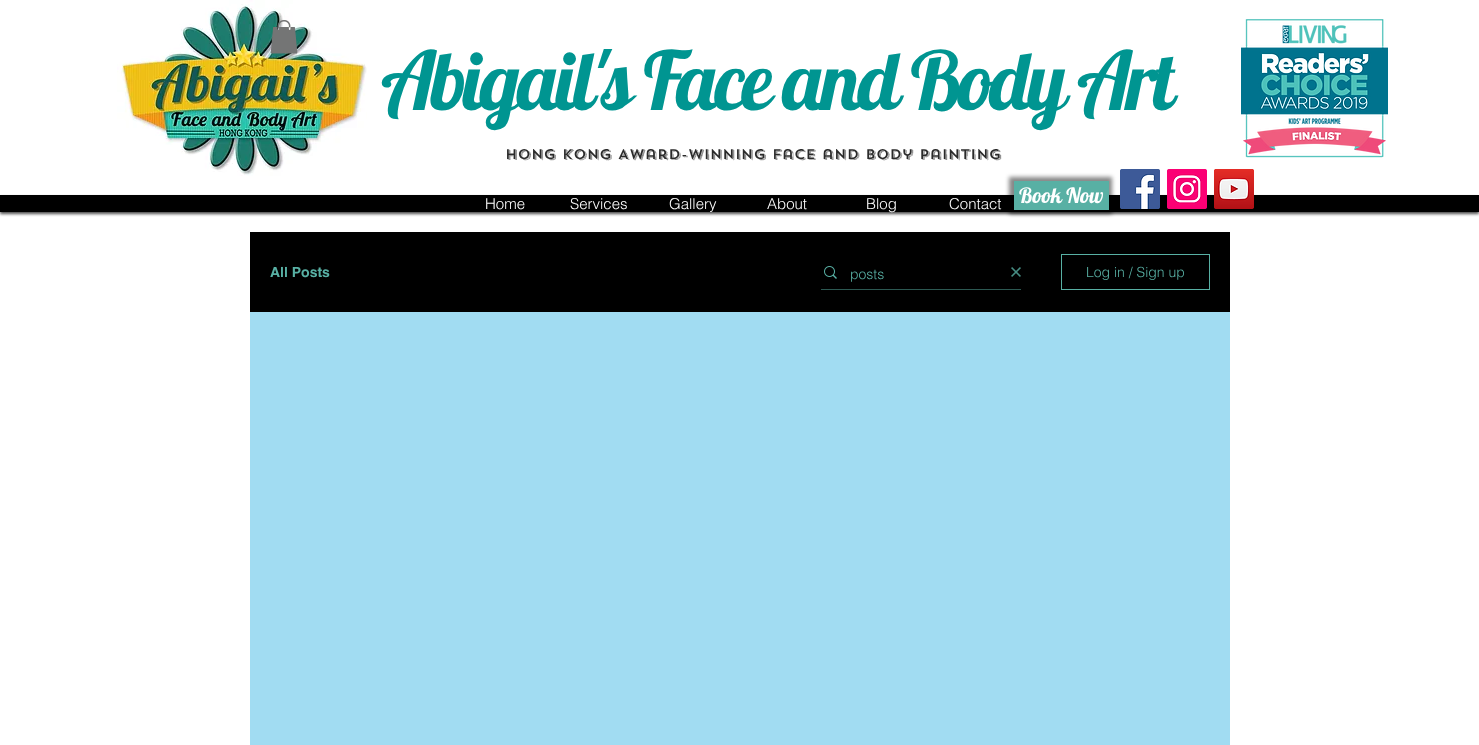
<svg xmlns="http://www.w3.org/2000/svg" width="1479" height="745" viewBox="0 0 1479 745">
  <style>*{font-kerning:none!important;font-variant-ligatures:none!important}</style>
  <defs>
    <filter id="blur1" x="-50%" y="-200%" width="200%" height="500%"><feGaussianBlur stdDeviation="1.5"/></filter>
    <filter id="blur2" x="-50%" y="-200%" width="200%" height="500%"><feGaussianBlur stdDeviation="2"/></filter>
  </defs>
  <rect width="100%" height="100%" fill="#ffffff"/>
  <image x="117" y="0" width="250" height="176" href="img1.png"/>
  <image x="1241" y="19" width="147" height="139" href="img2.png"/>
  <image x="270" y="20" width="28" height="34" href="img3.png"/>
  <text x="381" y="110" font-family="Lobster" font-size="81" letter-spacing="-4.05" fill="#009591">Abigail's Face and Body Art</text>
  <text x="505" y="159" font-family="'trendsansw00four'" font-size="14" font-weight="500" letter-spacing="0.15" fill="#2a2a2a">Hong Kong Award-Winning face and body paintING</text>
  <rect x="0" y="197" width="1479" height="17" fill="#000000" fill-opacity="0.7" filter="url(#blur1)"/>
  <rect x="0" y="195" width="1479" height="17" fill="#000000"/>
  <text x="485" y="209" font-family="helvetica" font-size="15" font-weight="300" fill="#ffffff">Home</text>
  <text x="570" y="209" font-family="helvetica" font-size="15" font-weight="300" fill="#ffffff">Services</text>
  <text x="669" y="209" font-family="helvetica" font-size="15" font-weight="300" fill="#ffffff">Gallery</text>
  <text x="767" y="209" font-family="helvetica" font-size="15" font-weight="300" fill="#ffffff">About</text>
  <text x="866" y="209" font-family="helvetica" font-size="15" font-weight="300" fill="#ffffff">Blog</text>
  <text x="949" y="209" font-family="helvetica" font-size="15" font-weight="300" fill="#ffffff">Contact</text>
  <rect x="1009" y="177" width="103" height="37" fill="#000000" fill-opacity="0.47" filter="url(#blur2)"/>
  <rect x="1014" y="181" width="95" height="29" fill="#58b0a4"/>
  <text x="1019" y="203" font-family="Lobster" font-size="21" fill="#ffffff">Book Now</text>
  <image x="1120" y="169" width="40" height="40" href="img4.png"/>
  <image x="1167" y="169" width="40" height="40" href="img5.png"/>
  <image x="1214" y="169" width="40" height="40" href="img6.png"/>
  <rect x="250" y="312" width="980" height="433" fill="#a1dcf2"/>
  <rect x="250" y="232" width="980" height="80" fill="#000000"/>
  <text x="270" y="277" font-family="helvetica" font-size="14" font-weight="bold" fill="#58b0a4">All Posts</text>
  <image x="824" y="266" width="13" height="13" href="img7.png"/>
  <text x="850" y="279" font-family="helvetica" font-size="14" font-weight="300" fill="#58b0a4">posts</text>
  <image x="1011" y="267" width="10" height="10" href="img8.png"/>
  <rect x="821" y="289" width="200" height="1" fill="#2c5852"/>
  <rect x="1061.5" y="254.5" width="148" height="35" fill="none" stroke="#58b0a4"/>
  <text x="1086" y="277" font-family="helvetica" font-size="14" font-weight="300" fill="#58b0a4">Log in / Sign up</text>
</svg>
